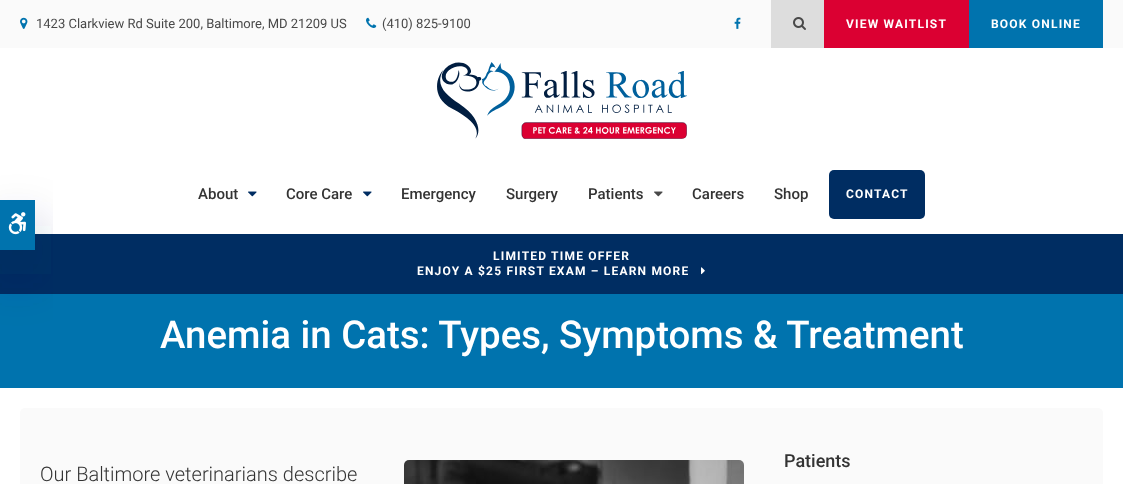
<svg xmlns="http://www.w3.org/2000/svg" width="1123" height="484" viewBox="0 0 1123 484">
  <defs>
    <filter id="blur1" x="-50%" y="-200%" width="200%" height="500%"><feGaussianBlur stdDeviation="25"/></filter>
  </defs>
  <rect width="100%" height="100%" fill="#ffffff"/>
  <rect x="0" y="0" width="1123" height="48" fill="#fafafa"/>
  <image x="20" y="17" width="8" height="12" href="img1.png"/>
  <text x="36" y="28" font-family="Roboto" font-size="13" fill="#494949">1423 Clarkview Rd Suite 200, Baltimore, MD 21209 US</text>
  <image x="366" y="17" width="11" height="11" href="img2.png"/>
  <text x="382" y="28" font-family="Roboto" font-size="13" fill="#494949">(410) 825-9100</text>
  <image x="734" y="17" width="7" height="12" href="img3.png"/>
  <rect x="771" y="0" width="53" height="48" fill="#dddddd"/>
  <image x="793" y="17" width="13" height="13" href="img4.png"/>
  <rect x="824" y="0" width="145" height="48" fill="#db0032"/>
  <text x="846" y="28" font-family="Roboto" font-size="12" font-weight="bold" letter-spacing="1.2" fill="#ffffff">VIEW WAITLIST</text>
  <rect x="969" y="0" width="134" height="48" fill="#0073ae"/>
  <text x="991" y="28" font-family="Roboto" font-size="12" font-weight="bold" letter-spacing="1.2" fill="#ffffff">BOOK ONLINE</text>
  <image x="437" y="62" width="250" height="77" href="img5.png"/>
  <text x="198" y="199" font-family="Roboto" font-size="15" font-weight="500" fill="#333333">About</text>
  <image x="248" y="191" width="9" height="6" href="img6.png"/>
  <text x="286" y="199" font-family="Roboto" font-size="15" font-weight="500" fill="#333333">Core Care</text>
  <image x="363" y="191" width="9" height="6" href="img6.png"/>
  <text x="401" y="199" font-family="Roboto" font-size="15" font-weight="500" fill="#333333">Emergency</text>
  <text x="506" y="199" font-family="Roboto" font-size="15" font-weight="500" fill="#333333">Surgery</text>
  <text x="588" y="199" font-family="Roboto" font-size="15" font-weight="500" fill="#333333">Patients</text>
  <image x="654" y="191" width="9" height="6" href="img7.png"/>
  <text x="692" y="199" font-family="Roboto" font-size="15" font-weight="500" fill="#333333">Careers</text>
  <text x="774" y="199" font-family="Roboto" font-size="15" font-weight="500" fill="#333333">Shop</text>
  <rect x="829" y="170" width="96" height="49" rx="5" fill="#002d62"/>
  <text x="846" y="198" font-family="Roboto" font-size="12" font-weight="bold" letter-spacing="1.2" fill="#ffffff">CONTACT</text>
  <rect x="0" y="234" width="1123" height="60" fill="#002d62"/>
  <rect x="0" y="294" width="1123" height="94" fill="#0073ae"/>
  <rect x="0" y="225" width="35" height="50" fill="#002d62" fill-opacity="0.3" filter="url(#blur1)"/>
  <rect x="0" y="200" width="35" height="50" fill="#0073ae"/>
  <image x="8" y="212" width="18" height="23" href="img8.png"/>
  <text x="493" y="260" font-family="Roboto" font-size="12" font-weight="bold" letter-spacing="1.2" fill="#ffffff">LIMITED TIME OFFER</text>
  <text x="417" y="275" font-family="Roboto" font-size="12" font-weight="bold" letter-spacing="1.2" fill="#ffffff">ENJOY A $25 FIRST EXAM – LEARN MORE</text>
  <image x="701" y="267" width="4" height="8" href="img9.png"/>
  <text x="160" y="348" font-family="Roboto" font-size="38.4" font-weight="500" fill="#ffffff">Anemia in Cats: Types, Symptoms &amp; Treatment</text>
  <rect x="20" y="408" width="1083" height="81" rx="5" fill="#fafafa"/>
  <text x="784" y="467" font-family="Roboto" font-size="18" font-weight="500" fill="#333333">Patients</text>
  <text x="40" y="481" font-family="Roboto" font-size="20" font-weight="300" fill="#333333">Our Baltimore veterinarians describe</text>
  <image x="404" y="460" width="340" height="24" href="img10.png"/>
</svg>
